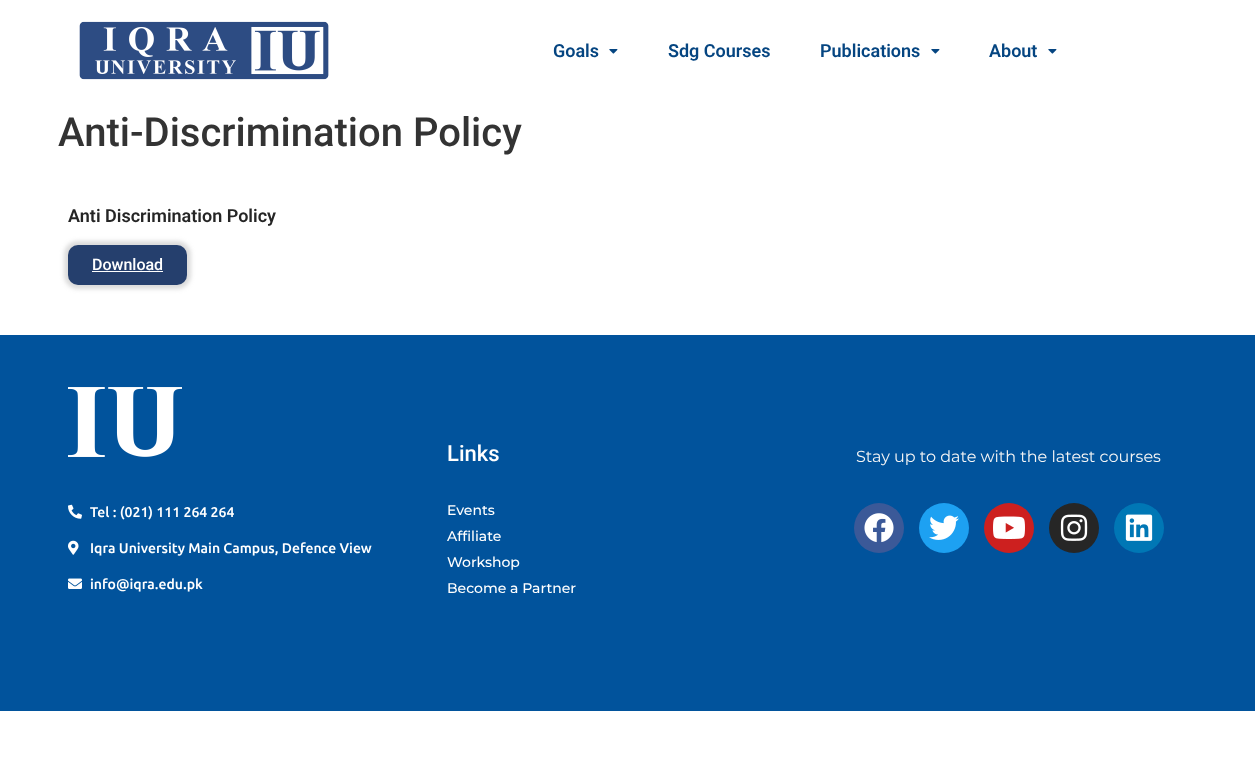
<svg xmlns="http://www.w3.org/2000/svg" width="1255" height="783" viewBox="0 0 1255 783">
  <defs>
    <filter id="blur1" x="-50%" y="-200%" width="200%" height="500%"><feGaussianBlur stdDeviation="2"/></filter>
  </defs>
  <rect width="100%" height="100%" fill="#ffffff"/>
  <image x="79" y="21" width="250" height="59" href="img1.png"/>
  <text x="553" y="57" font-family="Roboto" font-size="18" font-weight="600" fill="#054581">Goals</text>
  <image x="609" y="49" width="9" height="5" href="img2.png"/>
  <text x="668" y="57" font-family="Roboto" font-size="18" font-weight="600" fill="#054581">Sdg Courses</text>
  <text x="820" y="57" font-family="Roboto" font-size="18" font-weight="600" fill="#054581">Publications</text>
  <image x="931" y="49" width="9" height="5" href="img2.png"/>
  <text x="989" y="57" font-family="Roboto" font-size="18" font-weight="600" fill="#054581">About</text>
  <image x="1048" y="49" width="9" height="5" href="img2.png"/>
  <text x="58" y="146" font-family="Roboto" font-size="40" font-weight="500" fill="#333333">Anti-Discrimination Policy</text>
  <text x="68" y="222" font-family="Roboto" font-size="18" font-weight="600" fill="#252525">Anti Discrimination Policy</text>
  <rect x="64" y="241" width="127" height="48" rx="14" fill="#b8b8b8" fill-opacity="0.5" filter="url(#blur1)"/>
  <rect x="68" y="245" width="119" height="40" rx="10" fill="#253f6d"/>
  <text x="92" y="270" font-family="Roboto" font-size="16" font-weight="500" fill="#ffffff">Download</text>
  <rect x="92" y="271" width="71" height="1" fill="#ffffff"/>
  <rect x="0" y="335" width="1255" height="376" fill="#01539c"/>
  <text x="447" y="461" font-family="Roboto" font-size="22" font-weight="500" fill="#ffffff">Links</text>
  <text x="447" y="515" font-family="Montserrat" font-size="14" font-weight="500" fill="#ffffff">Events</text>
  <text x="447" y="541" font-family="Montserrat" font-size="14" font-weight="500" fill="#ffffff">Affiliate</text>
  <text x="447" y="567" font-family="Montserrat" font-size="14" font-weight="500" fill="#ffffff">Workshop</text>
  <text x="447" y="593" font-family="Montserrat" font-size="14" font-weight="500" fill="#ffffff">Become a Partner</text>
  <text x="856" y="462" font-family="Montserrat" font-size="16" fill="#f5f5f5">Stay up to date with the latest courses</text>
  <circle cx="879" cy="528" r="25" fill="#3b5998"/>
  <image x="864" y="513" width="30" height="30" href="img3.png"/>
  <circle cx="944" cy="528" r="25" fill="#1da1f2"/>
  <image x="929" y="515" width="30" height="25" href="img4.png"/>
  <circle cx="1009" cy="528" r="25" fill="#cd201f"/>
  <image x="993" y="516" width="32" height="23" href="img5.png"/>
  <circle cx="1074" cy="528" r="25" fill="#262626"/>
  <image x="1060" y="514" width="28" height="27" href="img6.png"/>
  <circle cx="1139" cy="528" r="25" fill="#0077b5"/>
  <image x="1125" y="514" width="28" height="27" href="img7.png"/>
  <image x="68" y="387" width="114" height="70" href="img8.png"/>
  <image x="68" y="504" width="14" height="15" href="img9.png"/>
  <text x="90" y="517" font-family="Ubuntu" font-size="14" font-weight="500" fill="#ffffff">Tel : (021) 111 264 264</text>
  <image x="68" y="540" width="11" height="15" href="img10.png"/>
  <text x="90" y="553" font-family="Ubuntu" font-size="14" font-weight="500" fill="#ffffff">Iqra University Main Campus, Defence View</text>
  <image x="68" y="578" width="14" height="11" href="img11.png"/>
  <text x="90" y="589" font-family="Ubuntu" font-size="14" font-weight="500" fill="#ffffff">info@iqra.edu.pk</text>
</svg>
